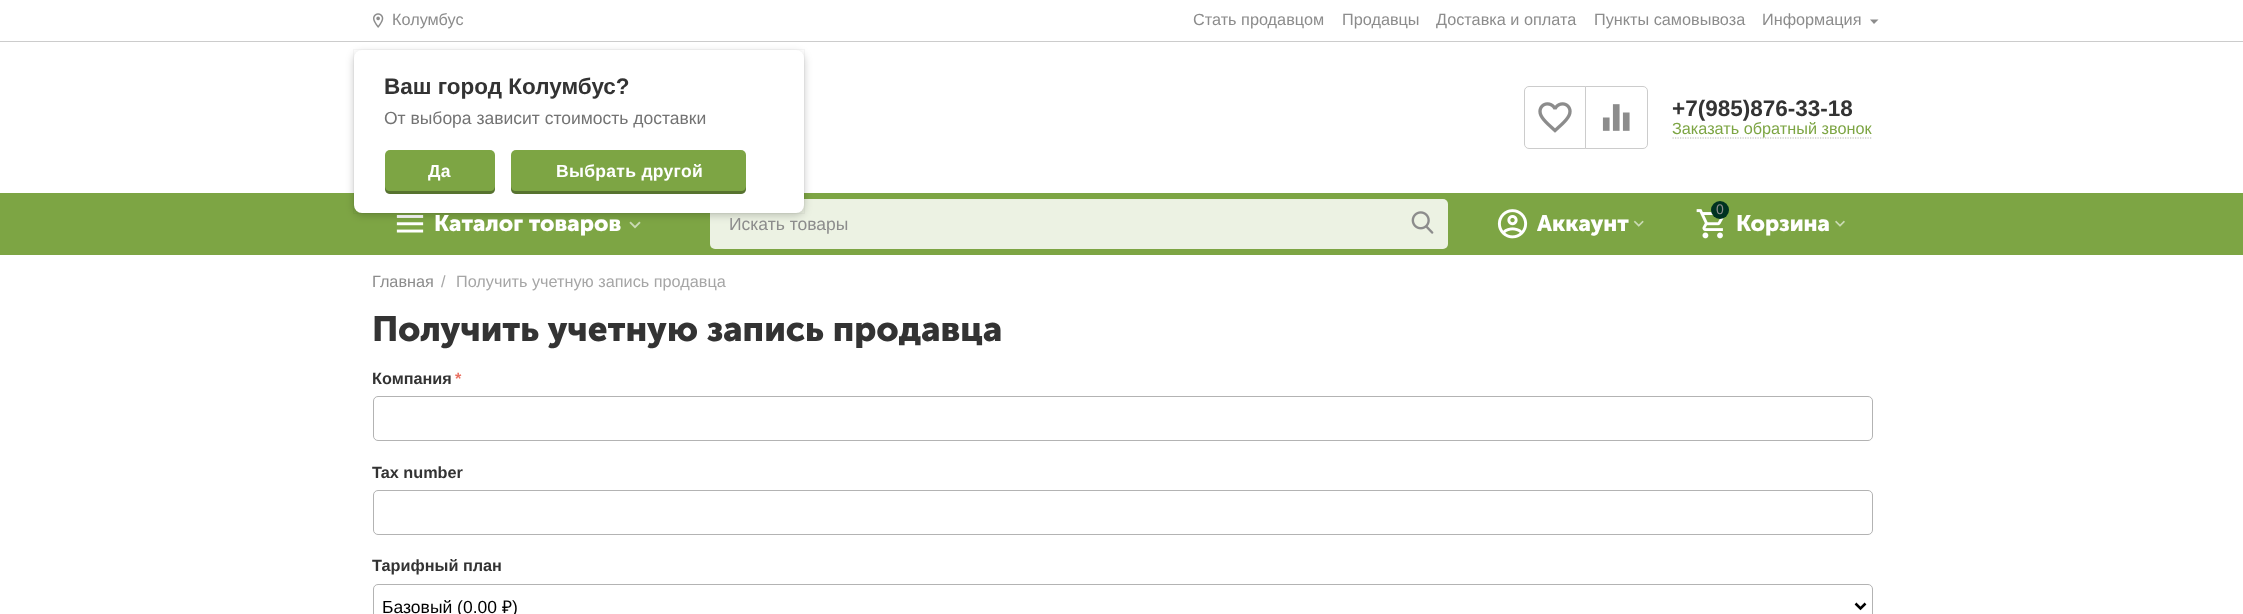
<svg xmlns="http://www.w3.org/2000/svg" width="2243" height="614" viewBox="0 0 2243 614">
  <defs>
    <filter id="blur1" x="-50%" y="-200%" width="200%" height="500%"><feGaussianBlur stdDeviation="4.5"/></filter>
  </defs>
  <rect width="100%" height="100%" fill="#ffffff"/>
  <rect x="0" y="41" width="2243" height="1" fill="#cccccc"/>
  <image x="373" y="13" width="11" height="15" href="img1.png"/>
  <text x="392" y="25" font-family="Liberation Sans" font-size="16.25" fill="#8c8c8c">Колумбус</text>
  <rect x="0" y="193" width="2243" height="62" fill="#7da544"/>
  <image x="396" y="215" width="28" height="18" href="img4.png"/>
  <image x="629" y="221" width="12" height="8" href="img5.png"/>
  <rect x="710" y="199" width="738" height="50" rx="5" fill="#ecf2e3"/>
  <rect x="354" y="53" width="450" height="162" rx="8" fill="#000000" fill-opacity="0.22" filter="url(#blur1)"/>
  <rect x="353.5" y="49.5" width="451" height="164" fill="none" stroke="#000000" stroke-opacity="0.03"/>
  <rect x="354" y="50" width="450" height="163" rx="8" fill="#ffffff"/>
  <text x="384" y="94" font-family="Liberation Sans" font-size="22.5" font-weight="bold" fill="#333333">Ваш город Колумбус?</text>
  <text x="384" y="124" font-family="Liberation Sans" font-size="17.5" fill="#737373">От выбора зависит стоимость доставки</text>
  <rect x="385" y="150" width="110" height="44" rx="5" fill="#7da544"/>
  <path d="M385 186V189C385 192 387 194 390 194H490C493 194 495 192 495 189V186C495 189 493 191 490 191H390C387 191 385 189 385 186Z" fill="#000000" fill-opacity="0.3"/>
  <text x="428" y="177" font-family="Liberation Sans" font-size="17.5" font-weight="bold" letter-spacing="0.3" fill="#ffffff">Да</text>
  <rect x="511" y="150" width="235" height="44" rx="5" fill="#7da544"/>
  <path d="M511 186V189C511 192 513 194 516 194H741C744 194 746 192 746 189V186C746 189 744 191 741 191H516C513 191 511 189 511 186Z" fill="#000000" fill-opacity="0.3"/>
  <text x="556" y="177" font-family="Liberation Sans" font-size="17.5" font-weight="bold" letter-spacing="0.3" fill="#ffffff">Выбрать другой</text>
  <text x="1193" y="25" font-family="Liberation Sans" font-size="16.25" fill="#8c8c8c">Стать продавцом</text>
  <text x="1342" y="25" font-family="Liberation Sans" font-size="16.25" fill="#8c8c8c">Продавцы</text>
  <text x="1436" y="25" font-family="Liberation Sans" font-size="16.25" fill="#8c8c8c">Доставка и оплата</text>
  <text x="1594" y="25" font-family="Liberation Sans" font-size="16.25" fill="#8c8c8c">Пункты самовывоза</text>
  <text x="1762" y="25" font-family="Liberation Sans" font-size="16.25" fill="#8c8c8c">Информация</text>
  <path d="M1874 24L1870 19.5H1878.5Z" fill="#8c8c8c"/>
  <path d="M1585.5 86.5H1643C1645.5 86.5 1647.5 88.5 1647.5 91V144C1647.5 146.5 1645.5 148.5 1643 148.5H1585.5Z" fill="none" stroke="#cccccc"/>
  <path d="M1529 86.5H1585.5V148.5H1529C1526.5 148.5 1524.5 146.5 1524.5 144V91C1524.5 88.5 1526.5 86.5 1529 86.5Z" fill="#ffffff" stroke="#cccccc"/>
  <image x="1538" y="102" width="34" height="31" href="img2.png"/>
  <image x="1602" y="104" width="28" height="27" href="img3.png"/>
  <text x="1672" y="116" font-family="Liberation Sans" font-size="22.5" font-weight="bold" fill="#333333">+7(985)876-33-18</text>
  <path d="M1672.5 138H1872.5" fill="none" stroke="#b4b4b4" stroke-width="1.2" stroke-dasharray="1.25 1.25"/>
  <text x="1672" y="134" font-family="Liberation Sans" font-size="16.25" fill="#7da544">Заказать обратный звонок</text>
  <text x="434" y="231" font-family="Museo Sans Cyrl" font-size="22.5" font-weight="bold" fill="#ffffff">Каталог товаров</text>
  <text x="729" y="230" font-family="Liberation Sans" font-size="17.5" fill="#8c8c8c">Искать товары</text>
  <image x="1411" y="211" width="23" height="23" href="img6.png"/>
  <image x="1497" y="209" width="31" height="30" href="img7.png"/>
  <text x="1537" y="231" font-family="Museo Sans Cyrl" font-size="22.5" font-weight="bold" fill="#ffffff">Аккаунт</text>
  <image x="1633" y="220" width="11" height="7" href="img8.png"/>
  <image x="1696" y="209" width="28" height="30" href="img9.png"/>
  <circle cx="1720" cy="210" r="9" fill="#003221"/>
  <text x="1716" y="214" font-family="Liberation Sans" font-size="14" fill="#8c8c8c">0</text>
  <text x="1736" y="231" font-family="Museo Sans Cyrl" font-size="22.5" font-weight="bold" fill="#ffffff">Корзина</text>
  <image x="1835" y="220" width="10" height="7" href="img10.png"/>
  <text x="372" y="287" font-family="Liberation Sans" font-size="16.25" fill="#8c8c8c">Главная</text>
  <text x="441" y="287" font-family="Liberation Sans" font-size="16.25" fill="#a6a6a6">/</text>
  <text x="456" y="287" font-family="Liberation Sans" font-size="16.25" fill="#a6a6a6">Получить учетную запись продавца</text>
  <text x="372" y="341" font-family="Museo Sans Cyrl" font-size="35" font-weight="bold" fill="#333333">Получить учетную запись продавца</text>
  <text x="372" y="384" font-family="Liberation Sans" font-size="16.25" font-weight="bold" fill="#333333">Компания</text>
  <text x="455" y="384" font-family="Liberation Sans" font-size="16.25" font-weight="bold" fill="#ea7162">*</text>
  <rect x="373.5" y="396.5" width="1499" height="44" rx="4.5" fill="none" stroke="#b3b3b3"/>
  <text x="372" y="478" font-family="Liberation Sans" font-size="16.25" font-weight="bold" fill="#333333">Tax number</text>
  <rect x="373.5" y="490.5" width="1499" height="44" rx="4.5" fill="none" stroke="#b3b3b3"/>
  <text x="372" y="571" font-family="Liberation Sans" font-size="16.25" font-weight="bold" fill="#333333">Тарифный план</text>
  <rect x="373.5" y="584.5" width="1499" height="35" rx="4.5" fill="none" stroke="#b3b3b3"/>
  <path d="M1855.5 603.5L1860.5 608.5L1865.5 603.5" fill="none" stroke="#000000" stroke-width="2.5"/>
  <text x="382" y="613" font-family="Liberation Sans" font-size="17.5" fill="#000000">Базовый (0.00</text>
  <text x="502" y="613" font-family="Noto Sans" font-size="17.5" fill="#000000">₽</text>
  <text x="512" y="613" font-family="Liberation Sans" font-size="17.5" fill="#000000">)</text>
</svg>
